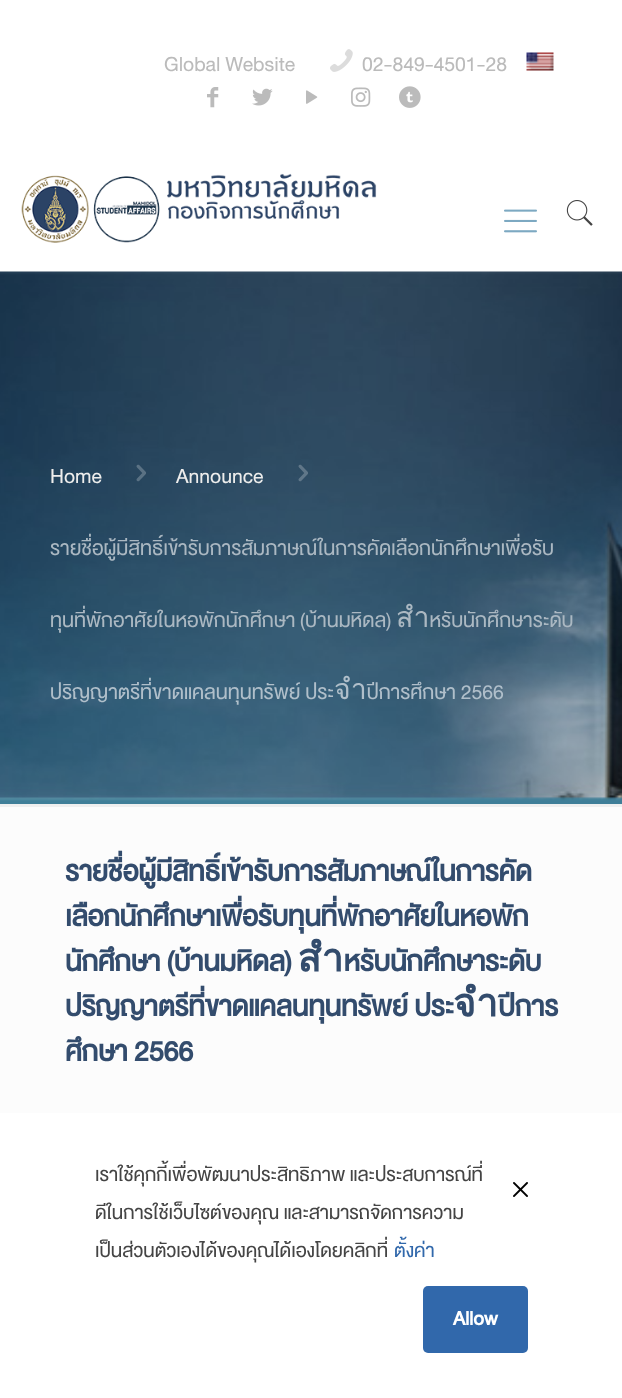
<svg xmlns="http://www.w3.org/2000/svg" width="622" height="1398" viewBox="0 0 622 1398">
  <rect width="100%" height="100%" fill="#fcfcfc"/>
  <rect x="0" y="0" width="622" height="272" fill="#ffffff"/>
  <text x="164" y="71" font-family="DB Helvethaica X" font-size="28.5" fill="#bbbbbb">Global Website</text>
  <image x="330" y="49" width="23" height="23" href="img1.png"/>
  <text x="362" y="71" font-family="DB Helvethaica X" font-size="28.5" fill="#bbbbbb">02-849-4501-28</text>
  <image x="526" y="52" width="28" height="19" href="img2.png"/>
  <image x="207" y="87" width="12" height="21" href="img3.png"/>
  <image x="252" y="88" width="21" height="18" href="img4.png"/>
  <image x="306" y="90" width="12" height="14" href="img5.png"/>
  <image x="351" y="87" width="20" height="20" href="img6.png"/>
  <image x="399" y="86" width="22" height="22" href="img7.png"/>
  <image x="21" y="173" width="356" height="70" href="img8.png"/>
  <image x="504" y="209" width="33" height="24" href="img9.png"/>
  <image x="566" y="200" width="27" height="26" href="img10.png"/>
  <image x="0" y="271" width="622" height="533" href="img11.png"/>
  <text x="50" y="483" font-family="DB Helvethaica X" font-size="28.5" fill="#ededec">Home</text>
  <image x="136" y="464" width="10" height="18" href="img12.png"/>
  <text x="176" y="483" font-family="DB Helvethaica X" font-size="28.5" fill="#ededec">Announce</text>
  <image x="298" y="464" width="10" height="18" href="img13.png"/>
  <text x="50" y="555" font-family="DB Helvethaica X" font-size="28.5" fill="#abb8c2">รายชื่อผู้มีสิทธิ์เข้ารับการสัมภาษณ์ในการคัดเลือกนักศึกษาเพื่อรับ</text>
  <text x="50" y="627" font-family="DB Helvethaica X" font-size="28.5" fill="#abb8c2">ทุนที่พักอาศัยในหอพักนักศึกษา (บ้านมหิดล) สำหรับนักศึกษาระดับ</text>
  <text x="50" y="699" font-family="DB Helvethaica X" font-size="28.5" fill="#b0bfca">ปริญญาตรีที่ขาดแคลนทุนทรัพย์ ประจำปีการศึกษา 2566</text>
  <rect x="0" y="804" width="622" height="3" fill="#efefef"/>
  <text x="65" y="881" font-family="DB Helvethaica X" font-size="39" font-weight="bold" fill="#334c6d">รายชื่อผู้มีสิทธิ์เข้ารับการสัมภาษณ์ในการคัด</text>
  <text x="65" y="926" font-family="DB Helvethaica X" font-size="39" font-weight="bold" fill="#334c6d">เลือกนักศึกษาเพื่อรับทุนที่พักอาศัยในหอพัก</text>
  <text x="65" y="971" font-family="DB Helvethaica X" font-size="39" font-weight="bold" fill="#334c6d">นักศึกษา (บ้านมหิดล) สำหรับนักศึกษาระดับ</text>
  <text x="65" y="1016" font-family="DB Helvethaica X" font-size="39" font-weight="bold" fill="#334c6d">ปริญญาตรีที่ขาดแคลนทุนทรัพย์ ประจำปีการ</text>
  <text x="65" y="1061" font-family="DB Helvethaica X" font-size="39" font-weight="bold" fill="#334c6d">ศึกษา 2566</text>
  <rect x="0" y="1113" width="622" height="285" fill="#ffffff"/>
  <text x="95" y="1181" font-family="DB Helvethaica X" font-size="27" fill="#444444">เราใช้คุกกี้เพื่อพัฒนาประสิทธิภาพ และประสบการณ์ที่</text>
  <text x="95" y="1219" font-family="DB Helvethaica X" font-size="27" fill="#444444">ดีในการใช้เว็บไซต์ของคุณ และสามารถจัดการความ</text>
  <text x="95" y="1257" font-family="DB Helvethaica X" font-size="27" fill="#444444">เป็นส่วนตัวเองได้ของคุณได้เองโดยคลิกที่</text>
  <text x="394" y="1257" font-family="DB Helvethaica X" font-size="27" fill="#3168ab">ตั้งค่า</text>
  <image x="513" y="1182" width="15" height="15" href="img14.png"/>
  <rect x="423" y="1286" width="105" height="67" rx="5" fill="#3168ab"/>
  <text x="453" y="1325" font-family="DB Helvethaica X" font-size="27" font-weight="bold" fill="#ffffff">Allow</text>
</svg>
